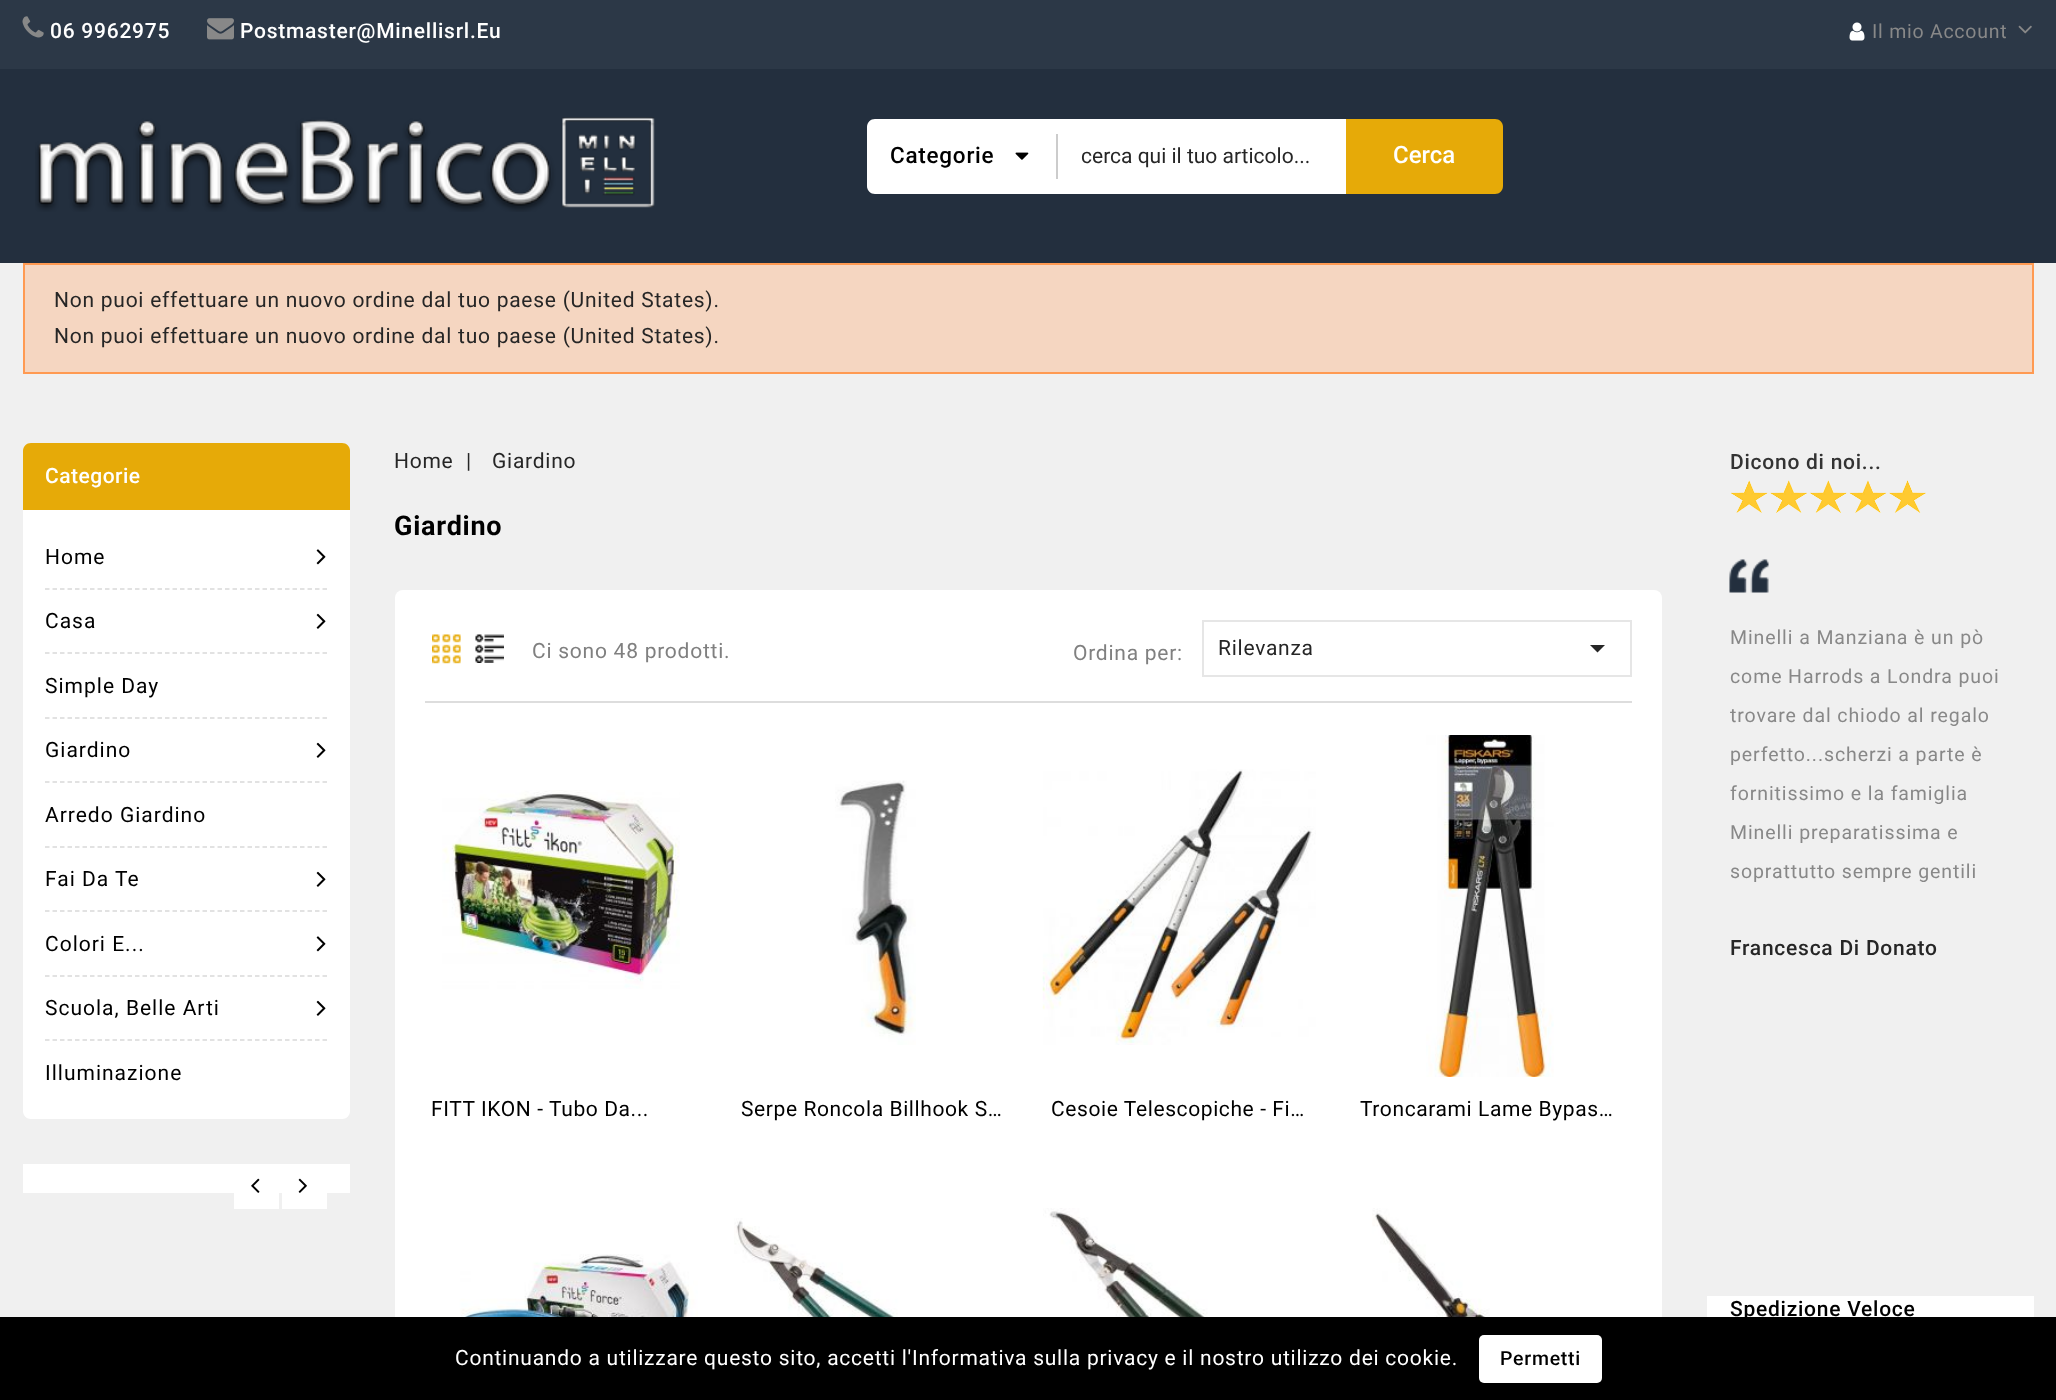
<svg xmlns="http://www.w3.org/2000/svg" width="2056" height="1400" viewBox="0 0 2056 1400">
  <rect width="100%" height="100%" fill="#f0f0f0"/>
  <rect x="0" y="0" width="2056" height="69" fill="#2c3847"/>
  <image x="22" y="16" width="22" height="22" href="img1.png"/>
  <text x="50" y="38" font-family="Roboto" font-size="21" font-weight="500" letter-spacing="0.75" fill="#ffffff">06 9962975</text>
  <image x="207" y="18" width="27" height="22" href="img2.png"/>
  <text x="240" y="38" font-family="Roboto" font-size="21" font-weight="500" letter-spacing="0.75" fill="#ffffff">Postmaster@Minellisrl.Eu</text>
  <image x="1849" y="22" width="16" height="19" href="img3.png"/>
  <text x="1872" y="38" font-family="Roboto" font-size="19.5" letter-spacing="0.75" fill="#888888">Il mio Account</text>
  <image x="2018" y="25" width="14" height="9" href="img4.png"/>
  <rect x="0" y="69" width="2056" height="194" fill="#232f3e"/>
  <image x="35" y="117" width="620" height="95" href="img5.png"/>
  <path d="M875 119H1058V194H875C870.5 194 867 190.5 867 186V127C867 122.5 870.5 119 875 119Z" fill="#ffffff"/>
  <text x="890" y="163" font-family="Roboto" font-size="22.5" font-weight="500" letter-spacing="0.75" fill="#000000">Categorie</text>
  <image x="1015" y="152" width="14" height="8" href="img6.png"/>
  <rect x="1056" y="134" width="2" height="45" fill="#cccccc"/>
  <rect x="1058" y="119" width="288" height="75" fill="#ffffff"/>
  <text x="1081" y="163" font-family="Roboto" font-size="21" fill="#262626">cerca qui il tuo articolo...</text>
  <path d="M1346 119H1495C1499.5 119 1503 122.5 1503 127V186C1503 190.5 1499.5 194 1495 194H1346Z" fill="#e6aa08"/>
  <text x="1393" y="163" font-family="Roboto" font-size="24" font-weight="500" fill="#ffffff">Cerca</text>
  <rect x="24" y="264" width="2009" height="109" fill="#f5d6c1" stroke="#ff9a52" stroke-width="2"/>
  <text x="54" y="307" font-family="Roboto" font-size="21" letter-spacing="0.75" fill="#262626">Non puoi effettuare un nuovo ordine dal tuo paese (United States).</text>
  <text x="54" y="343" font-family="Roboto" font-size="21" letter-spacing="0.75" fill="#262626">Non puoi effettuare un nuovo ordine dal tuo paese (United States).</text>
  <path d="M31 443H342C346.5 443 350 446.5 350 451V510H23V451C23 446.5 26.5 443 31 443Z" fill="#e6aa08"/>
  <text x="45" y="483" font-family="Roboto" font-size="21" font-weight="500" letter-spacing="0.5" fill="#ffffff">Categorie</text>
  <path d="M23 510H350V1111C350 1115.5 346.5 1119 342 1119H31C26.5 1119 23 1115.5 23 1111Z" fill="#ffffff"/>
  <path d="M45 589H327" fill="none" stroke="#d9d9d9" stroke-width="1.5" stroke-dasharray="4.5 3"/>
  <text x="45" y="564" font-family="Roboto" font-size="21" letter-spacing="1" fill="#000000">Home</text>
  <image x="316" y="549" width="10" height="16" href="img7.png"/>
  <path d="M45 653H327" fill="none" stroke="#d9d9d9" stroke-width="1.5" stroke-dasharray="4.5 3"/>
  <text x="45" y="628" font-family="Roboto" font-size="21" letter-spacing="1" fill="#000000">Casa</text>
  <image x="316" y="613" width="10" height="16" href="img8.png"/>
  <path d="M45 718H327" fill="none" stroke="#d9d9d9" stroke-width="1.5" stroke-dasharray="4.5 3"/>
  <text x="45" y="693" font-family="Roboto" font-size="21" letter-spacing="1" fill="#000000">Simple Day</text>
  <path d="M45 782H327" fill="none" stroke="#d9d9d9" stroke-width="1.5" stroke-dasharray="4.5 3"/>
  <text x="45" y="757" font-family="Roboto" font-size="21" letter-spacing="1" fill="#000000">Giardino</text>
  <image x="316" y="742" width="10" height="16" href="img8.png"/>
  <path d="M45 847H327" fill="none" stroke="#d9d9d9" stroke-width="1.5" stroke-dasharray="4.5 3"/>
  <text x="45" y="822" font-family="Roboto" font-size="21" letter-spacing="1" fill="#000000">Arredo Giardino</text>
  <path d="M45 911H327" fill="none" stroke="#d9d9d9" stroke-width="1.5" stroke-dasharray="4.5 3"/>
  <text x="45" y="886" font-family="Roboto" font-size="21" letter-spacing="1" fill="#000000">Fai Da Te</text>
  <image x="316" y="871" width="10" height="16" href="img8.png"/>
  <path d="M45 976H327" fill="none" stroke="#d9d9d9" stroke-width="1.5" stroke-dasharray="4.5 3"/>
  <text x="45" y="951" font-family="Roboto" font-size="21" letter-spacing="1" fill="#000000">Colori E...</text>
  <image x="316" y="936" width="10" height="16" href="img7.png"/>
  <path d="M45 1040H327" fill="none" stroke="#d9d9d9" stroke-width="1.5" stroke-dasharray="4.5 3"/>
  <text x="45" y="1015" font-family="Roboto" font-size="21" letter-spacing="1" fill="#000000">Scuola, Belle Arti</text>
  <image x="316" y="1000" width="10" height="16" href="img8.png"/>
  <text x="45" y="1080" font-family="Roboto" font-size="21" letter-spacing="1" fill="#000000">Illuminazione</text>
  <rect x="23" y="1164" width="327" height="29" fill="#ffffff"/>
  <rect x="234" y="1193" width="45" height="16" fill="#ffffff"/>
  <image x="251" y="1178" width="9" height="15" href="img9.png"/>
  <rect x="282" y="1193" width="45" height="16" fill="#ffffff"/>
  <image x="298" y="1178" width="9" height="15" href="img10.png"/>
  <text x="394" y="468" font-family="Roboto" font-size="21" letter-spacing="0.75" fill="#262626">Home</text>
  <text x="466" y="468" font-family="Roboto" font-size="21" letter-spacing="0.75" fill="#262626">|</text>
  <text x="492" y="468" font-family="Roboto" font-size="21" letter-spacing="0.75" fill="#262626">Giardino</text>
  <text x="394" y="535" font-family="Roboto" font-size="27" font-weight="bold" letter-spacing="0.75" fill="#000000">Giardino</text>
  <rect x="395" y="590" width="1267" height="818" rx="8" fill="#ffffff"/>
  <rect x="425" y="701" width="1207" height="2" fill="#dddddd"/>
  <image x="432" y="634" width="29" height="30" href="img11.png"/>
  <image x="475" y="634" width="29" height="29" href="img12.png"/>
  <text x="532" y="658" font-family="Roboto" font-size="21" letter-spacing="0.75" fill="#808080">Ci sono 48 prodotti.</text>
  <text x="1073" y="660" font-family="Roboto" font-size="21" letter-spacing="0.75" fill="#808080">Ordina per:</text>
  <rect x="1203" y="621" width="428" height="55" fill="none" stroke="#e6e6e6" stroke-width="2"/>
  <text x="1218" y="655" font-family="Roboto" font-size="21" letter-spacing="0.75" fill="#262626">Rilevanza</text>
  <path d="M1590 645H1605L1597.5 652.5Z" fill="#262626"/>
  <image x="442" y="790" width="238" height="199" href="img13.png"/>
  <text x="431" y="1116" font-family="Roboto" font-size="21" letter-spacing="0.6" fill="#000000">FITT IKON - Tubo Da...</text>
  <image x="835" y="780" width="81" height="265" href="img14.png"/>
  <text x="741" y="1116" font-family="Roboto" font-size="21" letter-spacing="0.6" fill="#000000">Serpe Roncola Billhook S…</text>
  <image x="1042" y="769" width="274" height="276" href="img15.png"/>
  <text x="1051" y="1116" font-family="Roboto" font-size="21" letter-spacing="0.6" fill="#000000">Cesoie Telescopiche - Fi…</text>
  <image x="1426" y="735" width="128" height="342" href="img16.png"/>
  <text x="1360" y="1116" font-family="Roboto" font-size="21" letter-spacing="0.6" fill="#000000">Troncarami Lame Bypas…</text>
  <image x="442" y="1254" width="256" height="63" href="img17.png"/>
  <image x="734" y="1218" width="278" height="99" href="img18.png"/>
  <image x="1043" y="1208" width="274" height="109" href="img19.png"/>
  <image x="1372" y="1208" width="245" height="109" href="img20.png"/>
  <text x="1730" y="469" font-family="Roboto" font-size="21" font-weight="500" letter-spacing="0.75" fill="#333333">Dicono di noi...</text>
  <image x="1731" y="480" width="195" height="33" href="img21.png"/>
  <image x="1729" y="559" width="40" height="34" href="img22.png"/>
  <text x="1730" y="644" font-family="Roboto" font-size="19.5" letter-spacing="0.9" fill="#888888">Minelli a Manziana è un pò</text>
  <text x="1730" y="683" font-family="Roboto" font-size="19.5" letter-spacing="0.9" fill="#888888">come Harrods a Londra puoi</text>
  <text x="1730" y="722" font-family="Roboto" font-size="19.5" letter-spacing="0.9" fill="#888888">trovare dal chiodo al regalo</text>
  <text x="1730" y="761" font-family="Roboto" font-size="19.5" letter-spacing="0.9" fill="#888888">perfetto...scherzi a parte è</text>
  <text x="1730" y="800" font-family="Roboto" font-size="19.5" letter-spacing="0.9" fill="#888888">fornitissimo e la famiglia</text>
  <text x="1730" y="839" font-family="Roboto" font-size="19.5" letter-spacing="0.9" fill="#888888">Minelli preparatissima e</text>
  <text x="1730" y="878" font-family="Roboto" font-size="19.5" letter-spacing="0.9" fill="#888888">soprattutto sempre gentili</text>
  <text x="1730" y="955" font-family="Roboto" font-size="21" font-weight="500" letter-spacing="0.75" fill="#262626">Francesca Di Donato</text>
  <rect x="1707" y="1296" width="327" height="21" fill="#ffffff"/>
  <text x="1730" y="1316" font-family="Roboto" font-size="21" font-weight="500" letter-spacing="0.75" fill="#000000">Spedizione Veloce</text>
  <rect x="0" y="1317" width="2056" height="83" fill="#000000"/>
  <text x="455" y="1365" font-family="Roboto" font-size="21" letter-spacing="0.75" fill="#ffffff">Continuando a utilizzare questo sito, accetti l'Informativa sulla privacy e il nostro utilizzo dei cookie.</text>
  <rect x="1479" y="1335" width="123" height="48" rx="5" fill="#ffffff"/>
  <text x="1500" y="1365" font-family="Roboto" font-size="19.5" font-weight="500" letter-spacing="0.75" fill="#000000">Permetti</text>
</svg>
